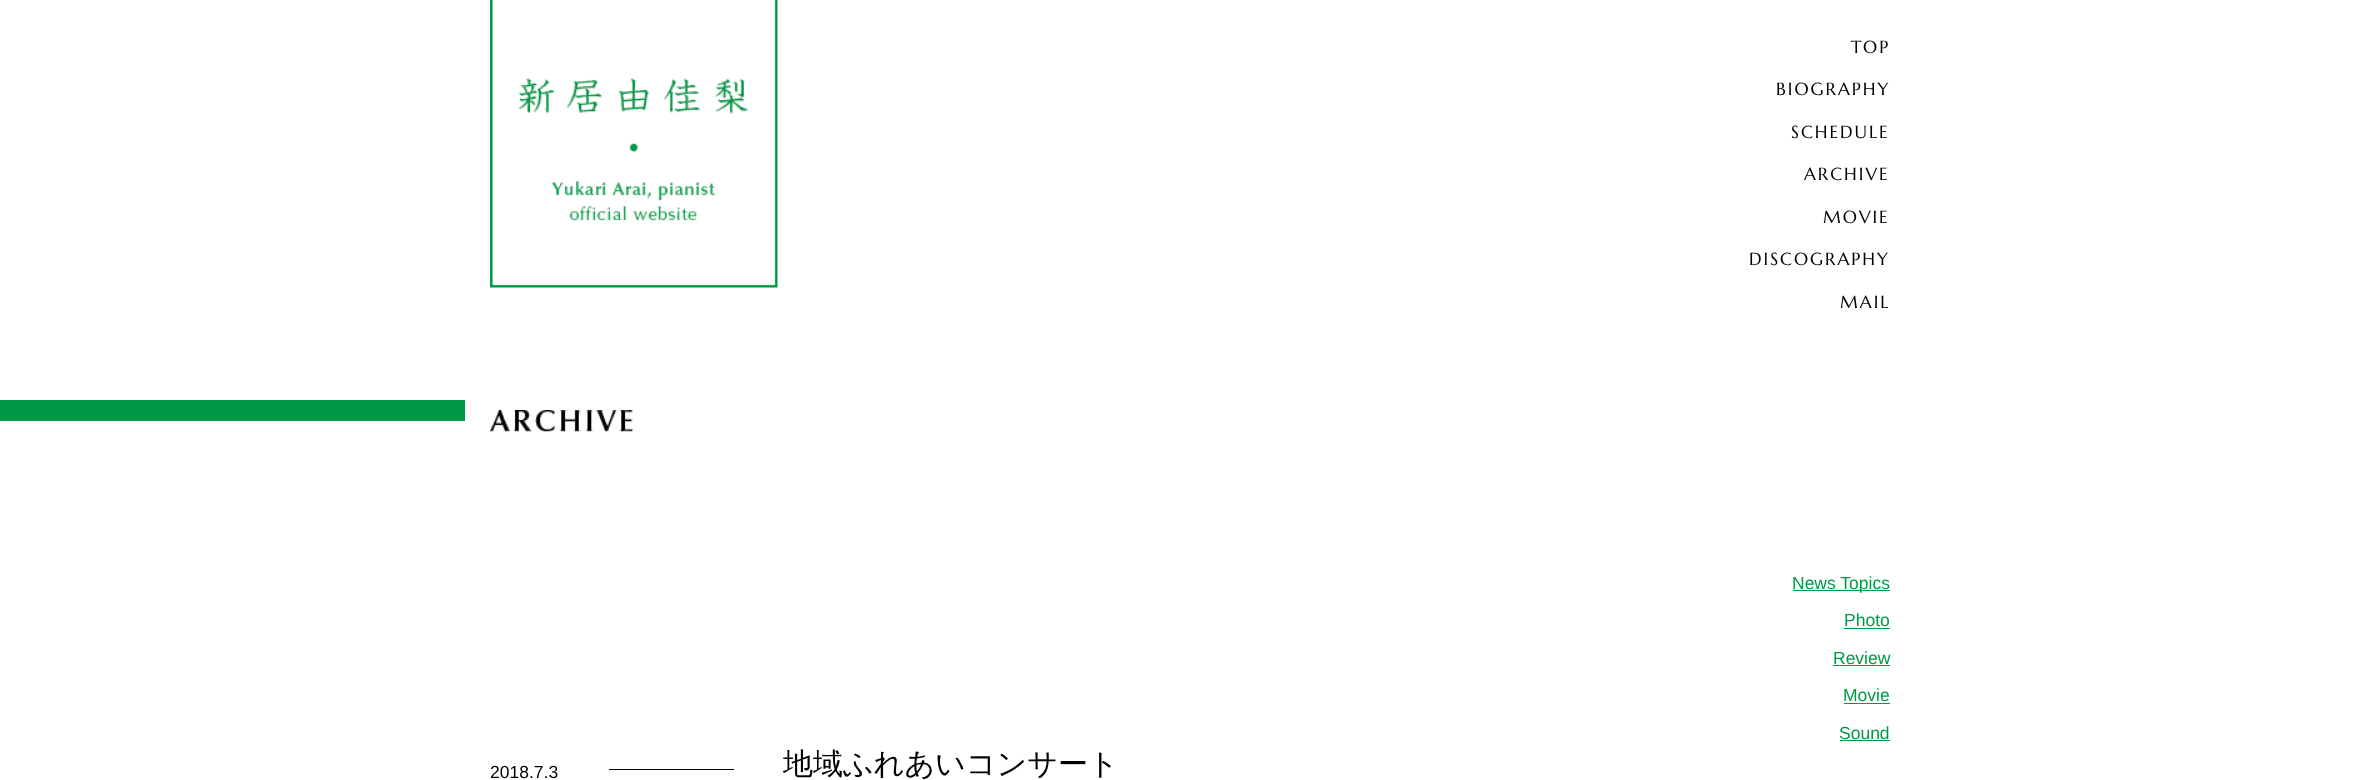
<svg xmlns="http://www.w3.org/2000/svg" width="2379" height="780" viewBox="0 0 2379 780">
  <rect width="100%" height="100%" fill="#ffffff"/>
  <image x="490" y="0" width="288" height="288" href="img1.png"/>
  <text x="1851" y="53" font-family="Marcellus" font-size="17.5" letter-spacing="2" fill="#000000">TOP</text>
  <text x="1776" y="95" font-family="Marcellus" font-size="17.5" letter-spacing="2" fill="#000000">BIOGRAPHY</text>
  <text x="1791" y="138" font-family="Marcellus" font-size="17.5" letter-spacing="2" fill="#000000">SCHEDULE</text>
  <text x="1804" y="180" font-family="Marcellus" font-size="17.5" letter-spacing="2" fill="#000000">ARCHIVE</text>
  <text x="1823" y="223" font-family="Marcellus" font-size="17.5" letter-spacing="2" fill="#000000">MOVIE</text>
  <text x="1749" y="265" font-family="Marcellus" font-size="17.5" letter-spacing="2" fill="#000000">DISCOGRAPHY</text>
  <text x="1840" y="308" font-family="Marcellus" font-size="17.5" letter-spacing="2" fill="#000000">MAIL</text>
  <rect x="0" y="400" width="465" height="21" fill="#009845"/>
  <image x="490" y="410" width="143" height="22" href="img2.png"/>
  <rect x="1793" y="590" width="97" height="1" fill="#009845"/>
  <text x="1792" y="589" font-family="Liberation Sans" font-size="17.5" fill="#009845">News Topics</text>
  <text x="1844" y="626" font-family="Liberation Sans" font-size="17.5" fill="#009845">Photo</text>
  <rect x="1844" y="628" width="46" height="1" fill="#009845"/>
  <text x="1833" y="664" font-family="Liberation Sans" font-size="17.5" fill="#009845">Review</text>
  <rect x="1833" y="665" width="57" height="1" fill="#009845"/>
  <text x="1843" y="701" font-family="Liberation Sans" font-size="17.5" fill="#009845">Movie</text>
  <rect x="1844" y="703" width="46" height="1" fill="#009845"/>
  <text x="1839" y="739" font-family="Liberation Sans" font-size="17.5" fill="#009845">Sound</text>
  <rect x="1840" y="740" width="50" height="1" fill="#009845"/>
  <text x="490" y="778" font-family="Liberation Sans" font-size="17.5" fill="#000000">2018.7.3</text>
  <rect x="609" y="769" width="125" height="1" fill="#000000"/>
  <text x="783" y="774" font-family="WenQuanYi Zen Hei" font-size="30" font-weight="500" fill="#000000">地域ふれあいコンサート</text>
</svg>
